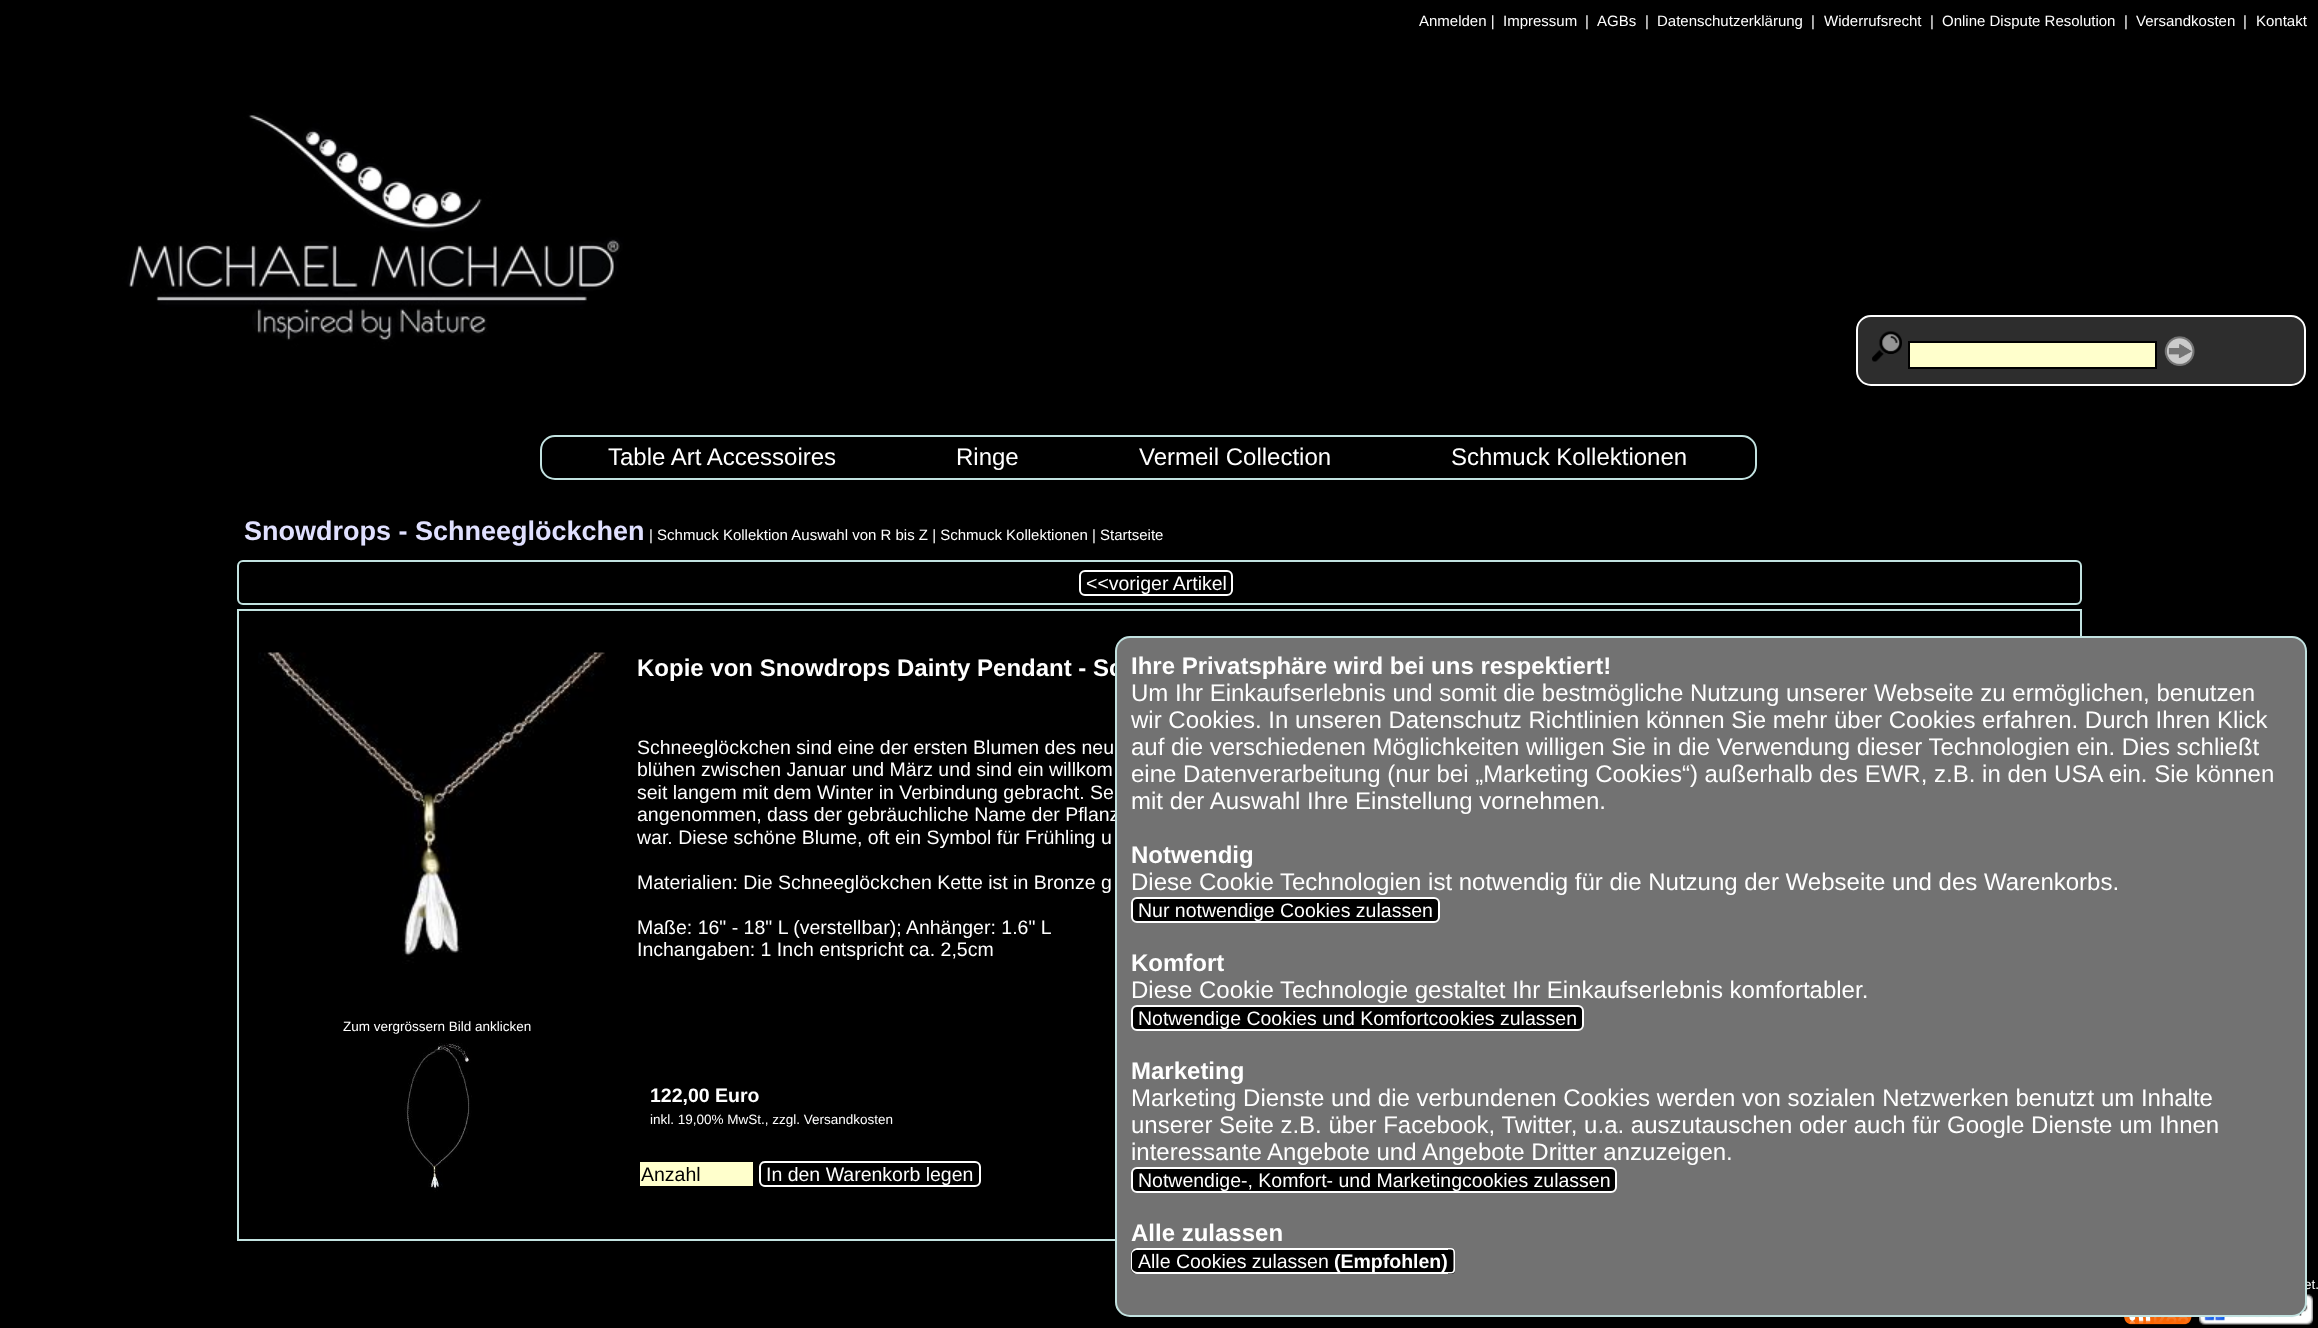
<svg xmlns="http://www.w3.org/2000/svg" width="2318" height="1328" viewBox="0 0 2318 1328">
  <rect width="100%" height="100%" fill="#000000"/>
  <text x="1419" y="26" font-family="Liberation Sans" font-size="15" fill="#ffffff">Anmelden |</text>
  <text x="1503" y="26" font-family="Liberation Sans" font-size="15" fill="#ffffff">Impressum</text>
  <text x="1585" y="26" font-family="Liberation Sans" font-size="15" fill="#ffffff">|</text>
  <text x="1597" y="26" font-family="Liberation Sans" font-size="15" fill="#ffffff">AGBs</text>
  <text x="1645" y="26" font-family="Liberation Sans" font-size="15" fill="#ffffff">|</text>
  <text x="1657" y="26" font-family="Liberation Sans" font-size="15" fill="#ffffff">Datenschutzerklärung</text>
  <text x="1811" y="26" font-family="Liberation Sans" font-size="15" fill="#ffffff">|</text>
  <text x="1824" y="26" font-family="Liberation Sans" font-size="15" fill="#ffffff">Widerrufsrecht</text>
  <text x="1930" y="26" font-family="Liberation Sans" font-size="15" fill="#ffffff">|</text>
  <text x="1942" y="26" font-family="Liberation Sans" font-size="15" fill="#ffffff">Online Dispute Resolution</text>
  <text x="2124" y="26" font-family="Liberation Sans" font-size="15" fill="#ffffff">|</text>
  <text x="2136" y="26" font-family="Liberation Sans" font-size="15" fill="#ffffff">Versandkosten</text>
  <text x="2243" y="26" font-family="Liberation Sans" font-size="15" fill="#ffffff">|</text>
  <text x="2256" y="26" font-family="Liberation Sans" font-size="15" fill="#ffffff">Kontakt</text>
  <image x="0" y="36" width="2318" height="375" href="img1.png"/>
  <rect x="1857" y="316" width="448" height="69" rx="14" fill="#2d2d2d" stroke="#000000" stroke-width="2"/>
  <rect x="1857" y="316" width="448" height="69" rx="14" fill="none" stroke="#ffffff" stroke-width="2"/>
  <image x="1872" y="331" width="30" height="31" href="img2.png"/>
  <rect x="1909" y="342" width="247" height="26" fill="#ffffcc" stroke="#000000" stroke-width="2"/>
  <image x="2164" y="336" width="31" height="30" href="img3.png"/>
  <rect x="541" y="436" width="1215" height="43" rx="14" fill="none" stroke="#c2e2e0" stroke-width="2"/>
  <text x="608" y="465" font-family="Liberation Sans" font-size="24" fill="#ffffff">Table Art Accessoires</text>
  <text x="956" y="465" font-family="Liberation Sans" font-size="24" fill="#ffffff">Ringe</text>
  <text x="1139" y="465" font-family="Liberation Sans" font-size="24" fill="#ffffff">Vermeil Collection</text>
  <text x="1451" y="465" font-family="Liberation Sans" font-size="24" fill="#ffffff">Schmuck Kollektionen</text>
  <text x="244" y="540" font-family="Liberation Sans" font-size="27" font-weight="bold" fill="#e0e0ff">Snowdrops - Schneeglöckchen</text>
  <text x="649" y="540" font-family="Liberation Sans" font-size="15" fill="#ffffff">| Schmuck Kollektion Auswahl von R bis Z | Schmuck Kollektionen | Startseite</text>
  <rect x="238" y="561" width="1843" height="43" rx="5" fill="none" stroke="#c2e2e0" stroke-width="2"/>
  <rect x="1080" y="571" width="152" height="24" rx="5" fill="none" stroke="#ffffff" stroke-width="2"/>
  <text x="1086" y="590" font-family="Liberation Sans" font-size="19.5" fill="#ffffff">&lt;&lt;voriger Artikel</text>
  <rect x="238" y="610" width="1843" height="630" fill="none" stroke="#c2e2e0" stroke-width="2"/>
  <image x="258" y="652" width="348" height="312" href="img4.png"/>
  <text x="343" y="1031" font-family="Liberation Sans" font-size="13.5" fill="#ffffff">Zum vergrössern Bild anklicken</text>
  <image x="404" y="1043" width="68" height="149" href="img5.png"/>
  <text x="637" y="676" font-family="Liberation Sans" font-size="24" font-weight="bold" fill="#ffffff">Kopie von Snowdrops Dainty Pendant - Sc</text>
  <text x="637" y="754" font-family="Liberation Sans" font-size="19.5" fill="#ffffff">Schneeglöckchen sind eine der ersten Blumen des neu</text>
  <text x="637" y="776" font-family="Liberation Sans" font-size="19.5" fill="#ffffff">blühen zwischen Januar und März und sind ein willkom</text>
  <text x="637" y="799" font-family="Liberation Sans" font-size="19.5" fill="#ffffff">seit langem mit dem Winter in Verbindung gebracht. Se</text>
  <text x="637" y="821" font-family="Liberation Sans" font-size="19.5" fill="#ffffff">angenommen, dass der gebräuchliche Name der Pflanz</text>
  <text x="637" y="844" font-family="Liberation Sans" font-size="19.5" fill="#ffffff">war. Diese schöne Blume, oft ein Symbol für Frühling u</text>
  <text x="637" y="889" font-family="Liberation Sans" font-size="19.5" fill="#ffffff">Materialien: Die Schneeglöckchen Kette ist in Bronze g</text>
  <text x="637" y="934" font-family="Liberation Sans" font-size="19.5" fill="#ffffff">Maße: 16" - 18" L (verstellbar); Anhänger: 1.6" L</text>
  <text x="637" y="956" font-family="Liberation Sans" font-size="19.5" fill="#ffffff">Inchangaben: 1 Inch entspricht ca. 2,5cm</text>
  <text x="650" y="1102" font-family="Liberation Sans" font-size="19.5" font-weight="bold" fill="#ffffff">122,00 Euro</text>
  <text x="650" y="1124" font-family="Liberation Sans" font-size="13.5" fill="#ffffff">inkl. 19,00% MwSt., zzgl. Versandkosten</text>
  <rect x="640" y="1162" width="113" height="24" fill="#ffffcc"/>
  <text x="641" y="1181" font-family="Liberation Sans" font-size="19.5" fill="#000000">Anzahl</text>
  <rect x="760" y="1162" width="220" height="24" rx="5" fill="none" stroke="#ffffff" stroke-width="2"/>
  <text x="766" y="1181" font-family="Liberation Sans" font-size="19.5" fill="#ffffff">In den Warenkorb legen</text>
  <text x="2304" y="1289" font-family="Liberation Sans" font-size="13.5" fill="#ffffff">et.</text>
  <image x="2199" y="1294" width="114" height="31" href="img7.png"/>
  <rect x="1116" y="637" width="1190" height="679" rx="14" fill="#727272" stroke="#c2e2e0" stroke-width="2"/>
  <text x="1131" y="674" font-family="Liberation Sans" font-size="24" font-weight="bold" fill="#ffffff">Ihre Privatsphäre wird bei uns respektiert!</text>
  <text x="1131" y="701" font-family="Liberation Sans" font-size="24" fill="#ffffff">Um Ihr Einkaufserlebnis und somit die bestmögliche Nutzung unserer Webseite zu ermöglichen, benutzen</text>
  <text x="1131" y="728" font-family="Liberation Sans" font-size="24" fill="#ffffff">wir Cookies. In unseren Datenschutz Richtlinien können Sie mehr über Cookies erfahren. Durch Ihren Klick</text>
  <text x="1131" y="755" font-family="Liberation Sans" font-size="24" fill="#ffffff">auf die verschiedenen Möglichkeiten willigen Sie in die Verwendung dieser Technologien ein. Dies schließt</text>
  <text x="1131" y="782" font-family="Liberation Sans" font-size="24" fill="#ffffff">eine Datenverarbeitung (nur bei „Marketing Cookies“) außerhalb des EWR, z.B. in den USA ein. Sie können</text>
  <text x="1131" y="809" font-family="Liberation Sans" font-size="24" fill="#ffffff">mit der Auswahl Ihre Einstellung vornehmen.</text>
  <text x="1131" y="863" font-family="Liberation Sans" font-size="24" font-weight="bold" fill="#ffffff">Notwendig</text>
  <text x="1131" y="890" font-family="Liberation Sans" font-size="24" fill="#ffffff">Diese Cookie Technologien ist notwendig für die Nutzung der Webseite und des Warenkorbs.</text>
  <rect x="1132" y="898" width="307" height="24" rx="5" fill="#000000" stroke="#ffffff" stroke-width="2"/>
  <text x="1138" y="917" font-family="Liberation Sans" font-size="19.5" fill="#ffffff">Nur notwendige Cookies zulassen</text>
  <text x="1131" y="971" font-family="Liberation Sans" font-size="24" font-weight="bold" fill="#ffffff">Komfort</text>
  <text x="1131" y="998" font-family="Liberation Sans" font-size="24" fill="#ffffff">Diese Cookie Technologie gestaltet Ihr Einkaufserlebnis komfortabler.</text>
  <rect x="1132" y="1006" width="451" height="24" rx="5" fill="#000000" stroke="#ffffff" stroke-width="2"/>
  <text x="1138" y="1025" font-family="Liberation Sans" font-size="19.5" fill="#ffffff">Notwendige Cookies und Komfortcookies zulassen</text>
  <text x="1131" y="1079" font-family="Liberation Sans" font-size="24" font-weight="bold" fill="#ffffff">Marketing</text>
  <text x="1131" y="1106" font-family="Liberation Sans" font-size="24" fill="#ffffff">Marketing Dienste und die verbundenen Cookies werden von sozialen Netzwerken benutzt um Inhalte</text>
  <text x="1131" y="1133" font-family="Liberation Sans" font-size="24" fill="#ffffff">unserer Seite z.B. über Facebook, Twitter, u.a. auszutauschen oder auch für Google Dienste um Ihnen</text>
  <text x="1131" y="1160" font-family="Liberation Sans" font-size="24" fill="#ffffff">interessante Angebote und Angebote Dritter anzuzeigen.</text>
  <rect x="1132" y="1168" width="484" height="24" rx="5" fill="#000000" stroke="#ffffff" stroke-width="2"/>
  <text x="1138" y="1187" font-family="Liberation Sans" font-size="19.5" fill="#ffffff">Notwendige-, Komfort- und Marketingcookies zulassen</text>
  <text x="1131" y="1241" font-family="Liberation Sans" font-size="24" font-weight="bold" fill="#ffffff">Alle zulassen</text>
  <path d="M1137 1248H1334V1274H1137C1133.5 1274 1131 1271.5 1131 1268V1254C1131 1250.5 1133.5 1248 1137 1248Z" fill="#000000"/>
  <path d="M1137 1248H1334V1274H1137C1134 1274 1131 1271 1131 1268V1254C1131 1251 1134 1248 1137 1248ZM1137 1250H1334V1272H1137C1135 1272 1132 1270 1132 1268V1254C1132 1252 1135 1250 1137 1250Z" fill="#ffffff" fill-rule="evenodd"/>
  <text x="1138" y="1268" font-family="Liberation Sans" font-size="19.5" fill="#ffffff">Alle Cookies zulassen</text>
  <rect x="1334" y="1250" width="114" height="22" fill="#000000"/>
  <rect x="1334" y="1272" width="114" height="2" fill="#ffffff"/>
  <text x="1334" y="1268" font-family="Liberation Sans" font-size="19.5" font-weight="bold" fill="#ffffff">(Empfohlen)</text>
  <rect x="1334" y="1248" width="114" height="2" fill="#ffffff"/>
  <path d="M1448 1248H1451.5C1453.5 1248 1455 1249.5 1455 1251.5V1270.5C1455 1272.5 1453.5 1274 1451.5 1274H1448Z" fill="#000000"/>
  <path d="M1447.5 1248H1451C1453.5 1248 1455 1249.5 1455 1252V1270C1455 1272 1453.5 1273.5 1451 1273.5H1447.5ZM1447.5 1249.5C1453 1249.5 1453.5 1249 1453.5 1255V1267C1453.5 1272.5 1453 1272 1447.5 1272Z" fill="#ffffff" fill-rule="evenodd"/>
  <image x="2124" y="1317" width="68" height="8" href="img6.png"/>
</svg>
